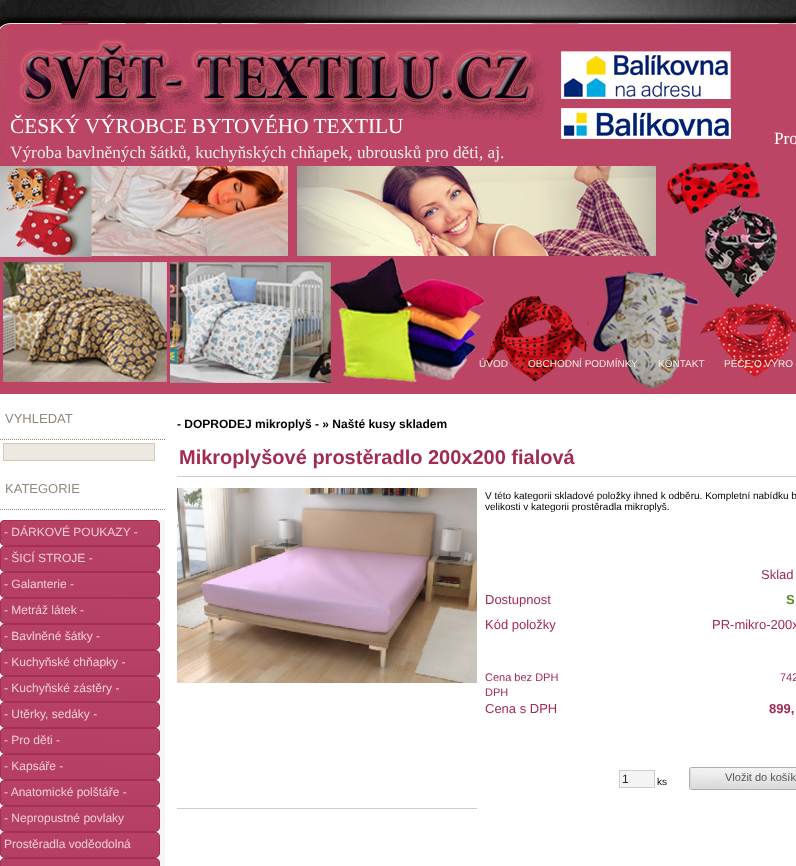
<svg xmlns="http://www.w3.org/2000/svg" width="796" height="866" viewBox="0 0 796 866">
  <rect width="100%" height="100%" fill="#ffffff"/>
  <image x="0" y="0" width="796" height="394" href="img1.png"/>
  <image x="0" y="0" width="6" height="6" href="img2.png"/>
  <text x="10" y="133" font-family="Liberation Serif" font-size="21.3" fill="#ffffff">ČESKÝ VÝROBCE BYTOVÉHO TEXTILU</text>
  <text x="774" y="144" font-family="Liberation Serif" font-size="17.3" fill="#ffffff">Pro</text>
  <text x="10" y="158" font-family="Liberation Serif" font-size="17.3" fill="#ebebeb">Výroba bavlněných šátků, kuchyňských chňapek, ubrousků pro děti, aj.</text>
  <text x="479" y="367" font-family="Liberation Sans" font-size="10" fill="#eeeedd">ÚVOD</text>
  <text x="528" y="367" font-family="Liberation Sans" font-size="10" fill="#eeeedd">OBCHODNÍ PODMÍNKY</text>
  <text x="658" y="367" font-family="Liberation Sans" font-size="10" fill="#eeeedd">KONTAKT</text>
  <text x="724" y="367" font-family="Liberation Sans" font-size="10" fill="#eeeedd">PÉČE O VÝRO</text>
  <path d="M0 439.5H165" fill="none" stroke="#91897c" stroke-dasharray="1 1"/>
  <text x="5" y="423" font-family="Liberation Sans" font-size="13" fill="#91897c">VYHLEDAT</text>
  <rect x="3.5" y="443.5" width="151" height="17" fill="#ede9e0" stroke="#d3cbb8"/>
  <path d="M0 509.5H165" fill="none" stroke="#91897c" stroke-dasharray="1 1"/>
  <text x="5" y="493" font-family="Liberation Sans" font-size="13" fill="#91897c">KATEGORIE</text>
  <rect x="160" y="520" width="5" height="346" fill="#f5f5f5"/>
  <image x="0" y="520" width="160" height="26" href="img3.png"/>
  <text x="4" y="536" font-family="Liberation Sans" font-size="12" fill="#f1cdd8">- DÁRKOVÉ POUKAZY -</text>
  <image x="0" y="546" width="160" height="26" href="img3.png"/>
  <text x="4" y="562" font-family="Liberation Sans" font-size="12" fill="#f1cdd8">- ŠICÍ STROJE -</text>
  <image x="0" y="572" width="160" height="26" href="img3.png"/>
  <text x="4" y="588" font-family="Liberation Sans" font-size="12" fill="#f1cdd8">- Galanterie -</text>
  <image x="0" y="598" width="160" height="26" href="img3.png"/>
  <text x="4" y="614" font-family="Liberation Sans" font-size="12" fill="#f1cdd8">- Metráž látek -</text>
  <image x="0" y="624" width="160" height="26" href="img3.png"/>
  <text x="4" y="640" font-family="Liberation Sans" font-size="12" fill="#f1cdd8">- Bavlněné šátky -</text>
  <image x="0" y="650" width="160" height="26" href="img3.png"/>
  <text x="4" y="666" font-family="Liberation Sans" font-size="12" fill="#f1cdd8">- Kuchyňské chňapky -</text>
  <image x="0" y="676" width="160" height="26" href="img3.png"/>
  <text x="4" y="692" font-family="Liberation Sans" font-size="12" fill="#f1cdd8">- Kuchyňské zástěry -</text>
  <image x="0" y="702" width="160" height="26" href="img3.png"/>
  <text x="4" y="718" font-family="Liberation Sans" font-size="12" fill="#f1cdd8">- Utěrky, sedáky -</text>
  <image x="0" y="728" width="160" height="26" href="img3.png"/>
  <text x="4" y="744" font-family="Liberation Sans" font-size="12" fill="#f1cdd8">- Pro děti -</text>
  <image x="0" y="754" width="160" height="26" href="img3.png"/>
  <text x="4" y="770" font-family="Liberation Sans" font-size="12" fill="#f1cdd8">- Kapsáře -</text>
  <image x="0" y="780" width="160" height="26" href="img3.png"/>
  <text x="4" y="796" font-family="Liberation Sans" font-size="12" fill="#f1cdd8">- Anatomické polštáře -</text>
  <image x="0" y="806" width="160" height="26" href="img3.png"/>
  <text x="4" y="822" font-family="Liberation Sans" font-size="12" fill="#f1cdd8">- Nepropustné povlaky</text>
  <image x="0" y="832" width="160" height="26" href="img3.png"/>
  <text x="4" y="848" font-family="Liberation Sans" font-size="12" fill="#f1cdd8">Prostěradla voděodolná</text>
  <image x="0" y="858" width="160" height="8" href="img4.png"/>
  <text x="177" y="428" font-family="Liberation Sans" font-size="12" font-weight="bold" fill="#000000">- DOPRODEJ mikroplyš - » Našté kusy skladem</text>
  <text x="179" y="464" font-family="Liberation Sans" font-size="20" font-weight="bold" fill="#a22b50">Mikroplyšové prostěradlo 200x200 fialová</text>
  <rect x="177" y="476" width="619" height="1" fill="#cccccc"/>
  <image x="177" y="488" width="300" height="195" href="img5.png"/>
  <rect x="177" y="808" width="300" height="1" fill="#cccccc"/>
  <text x="485" y="499" font-family="Liberation Sans" font-size="10" fill="#000000">V této kategorii skladové položky ihned k odběru. Kompletní nabídku b</text>
  <text x="485" y="510" font-family="Liberation Sans" font-size="10" fill="#000000">velikosti v kategorii prostěradla mikroplyš.</text>
  <text x="761" y="579" font-family="Liberation Sans" font-size="13" fill="#a22b50">Sklad</text>
  <text x="485" y="604" font-family="Liberation Sans" font-size="13" fill="#a22b50">Dostupnost</text>
  <text x="786" y="604" font-family="Liberation Sans" font-size="13" font-weight="bold" fill="#568d25">S</text>
  <text x="485" y="629" font-family="Liberation Sans" font-size="13" fill="#a22b50">Kód položky</text>
  <text x="712" y="629" font-family="Liberation Sans" font-size="13" fill="#a22b50">PR-mikro-200x</text>
  <text x="485" y="681" font-family="Liberation Sans" font-size="11" fill="#a22b50">Cena bez DPH</text>
  <text x="780" y="681" font-family="Liberation Sans" font-size="11" fill="#a22b50">742</text>
  <text x="485" y="696" font-family="Liberation Sans" font-size="11" fill="#a22b50">DPH</text>
  <text x="485" y="713" font-family="Liberation Sans" font-size="13" fill="#a22b50">Cena s DPH</text>
  <text x="769" y="713" font-family="Liberation Sans" font-size="13" font-weight="bold" fill="#a22b50">899,</text>
  <rect x="619.5" y="770.5" width="35" height="17" fill="#f4f4f4" stroke="#cccccc"/>
  <text x="622" y="783" font-family="Liberation Sans" font-size="12" fill="#2a2a2a">1</text>
  <text x="657" y="785" font-family="Liberation Sans" font-size="10" fill="#000000">ks</text>
  <image x="689" y="767" width="107" height="23" href="img6.png"/>
  <text x="725" y="781" font-family="Liberation Sans" font-size="11" fill="#575757">Vložit do košík</text>
</svg>
